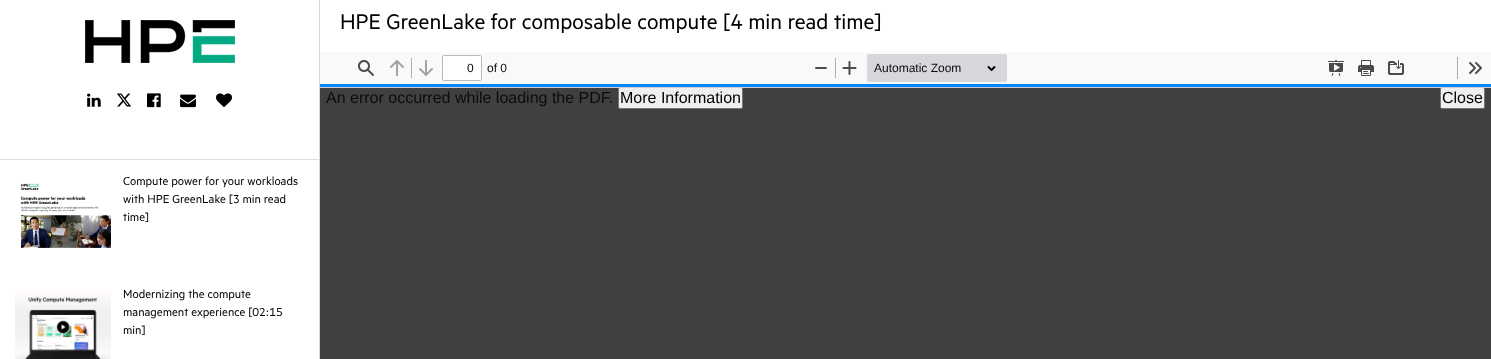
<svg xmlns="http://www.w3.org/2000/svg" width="1491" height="359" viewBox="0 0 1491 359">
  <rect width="100%" height="100%" fill="#404040"/>
  <rect x="320" y="0" width="1171" height="52" fill="#ffffff"/>
  <text x="340" y="29" font-family="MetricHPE" font-size="24" fill="#000000">HPE GreenLake for composable compute [4 min read time]</text>
  <rect x="0" y="0" width="319" height="359" fill="#ffffff"/>
  <rect x="319" y="0" width="1" height="359" fill="#d9d9d9"/>
  <rect x="0" y="159" width="319" height="1" fill="#e0e0e0"/>
  <image x="85" y="20" width="150" height="43" href="img1.png"/>
  <image x="87" y="93" width="14" height="14" href="img2.png"/>
  <image x="117" y="93" width="15" height="14" href="img3.png"/>
  <image x="147" y="93" width="14" height="15" href="img4.png"/>
  <image x="180" y="94" width="16" height="14" href="img5.png"/>
  <image x="216" y="93" width="16" height="15" href="img6.png"/>
  <image x="20" y="183" width="91" height="65" href="img7.png"/>
  <text x="123" y="185" font-family="MetricHPE" font-size="13" fill="#000000">Compute power for your workloads</text>
  <text x="123" y="203" font-family="MetricHPE" font-size="13" fill="#000000">with HPE GreenLake [3 min read</text>
  <text x="123" y="221" font-family="MetricHPE" font-size="13" fill="#000000">time]</text>
  <image x="15" y="291" width="96" height="68" href="img8.png"/>
  <text x="123" y="298" font-family="MetricHPE" font-size="13" fill="#000000">Modernizing the compute</text>
  <text x="123" y="316" font-family="MetricHPE" font-size="13" fill="#000000">management experience [02:15</text>
  <text x="123" y="334" font-family="MetricHPE" font-size="13" fill="#000000">min]</text>
  <rect x="320" y="52" width="1171" height="32" fill="#f9f9fa"/>
  <image x="358" y="60" width="16" height="16" href="img9.png"/>
  <image x="390" y="60" width="14" height="16" href="img10.png"/>
  <rect x="411" y="58" width="1" height="20" fill="#aeaeaf"/>
  <image x="419" y="60" width="14" height="16" href="img11.png"/>
  <rect x="442.5" y="55.5" width="39" height="25" rx="1.5" fill="#ffffff" stroke="#bbbbbc"/>
  <text x="467" y="72" font-family="Liberation Sans" font-size="12" fill="#060606">0</text>
  <text x="487" y="72" font-family="Liberation Sans" font-size="12" fill="#0c0c0d">of 0</text>
  <rect x="815" y="67" width="12" height="2" rx="1" fill="#4b4b4b"/>
  <rect x="835" y="58" width="1" height="20" fill="#aeaeaf"/>
  <image x="842" y="61" width="15" height="14" href="img12.png"/>
  <rect x="867" y="54" width="140" height="28" rx="2" fill="#d7d7db"/>
  <text x="874" y="72" font-family="Liberation Sans" font-size="12" fill="#0c0c0d">Automatic Zoom</text>
  <image x="987" y="66" width="9" height="5" href="img13.png"/>
  <image x="1328" y="60" width="16" height="16" href="img14.png"/>
  <image x="1358" y="60" width="16" height="16" href="img15.png"/>
  <image x="1388" y="60" width="16" height="15" href="img16.png"/>
  <rect x="1457" y="57" width="1" height="22" fill="#aeaeaf"/>
  <image x="1469" y="62" width="13" height="12" href="img17.png"/>
  <rect x="618.5" y="87.5" width="124" height="21" rx="1.5" fill="#efefef" stroke="#767676"/>
  <rect x="1440.5" y="87.5" width="44" height="21" rx="1.5" fill="#efefef" stroke="#767676"/>
  <rect x="320" y="87" width="1171" height="1" fill="#cccccc"/>
  <rect x="320" y="84" width="1171" height="3" fill="#0a84ff"/>
  <text x="326" y="103" font-family="Liberation Sans" font-size="16" fill="#0c0c0d">An error occurred while loading the PDF.</text>
  <text x="620" y="103" font-family="Liberation Sans" font-size="16" fill="#000000">More Information</text>
  <text x="1442" y="103" font-family="Liberation Sans" font-size="16" fill="#000000">Close</text>
</svg>
